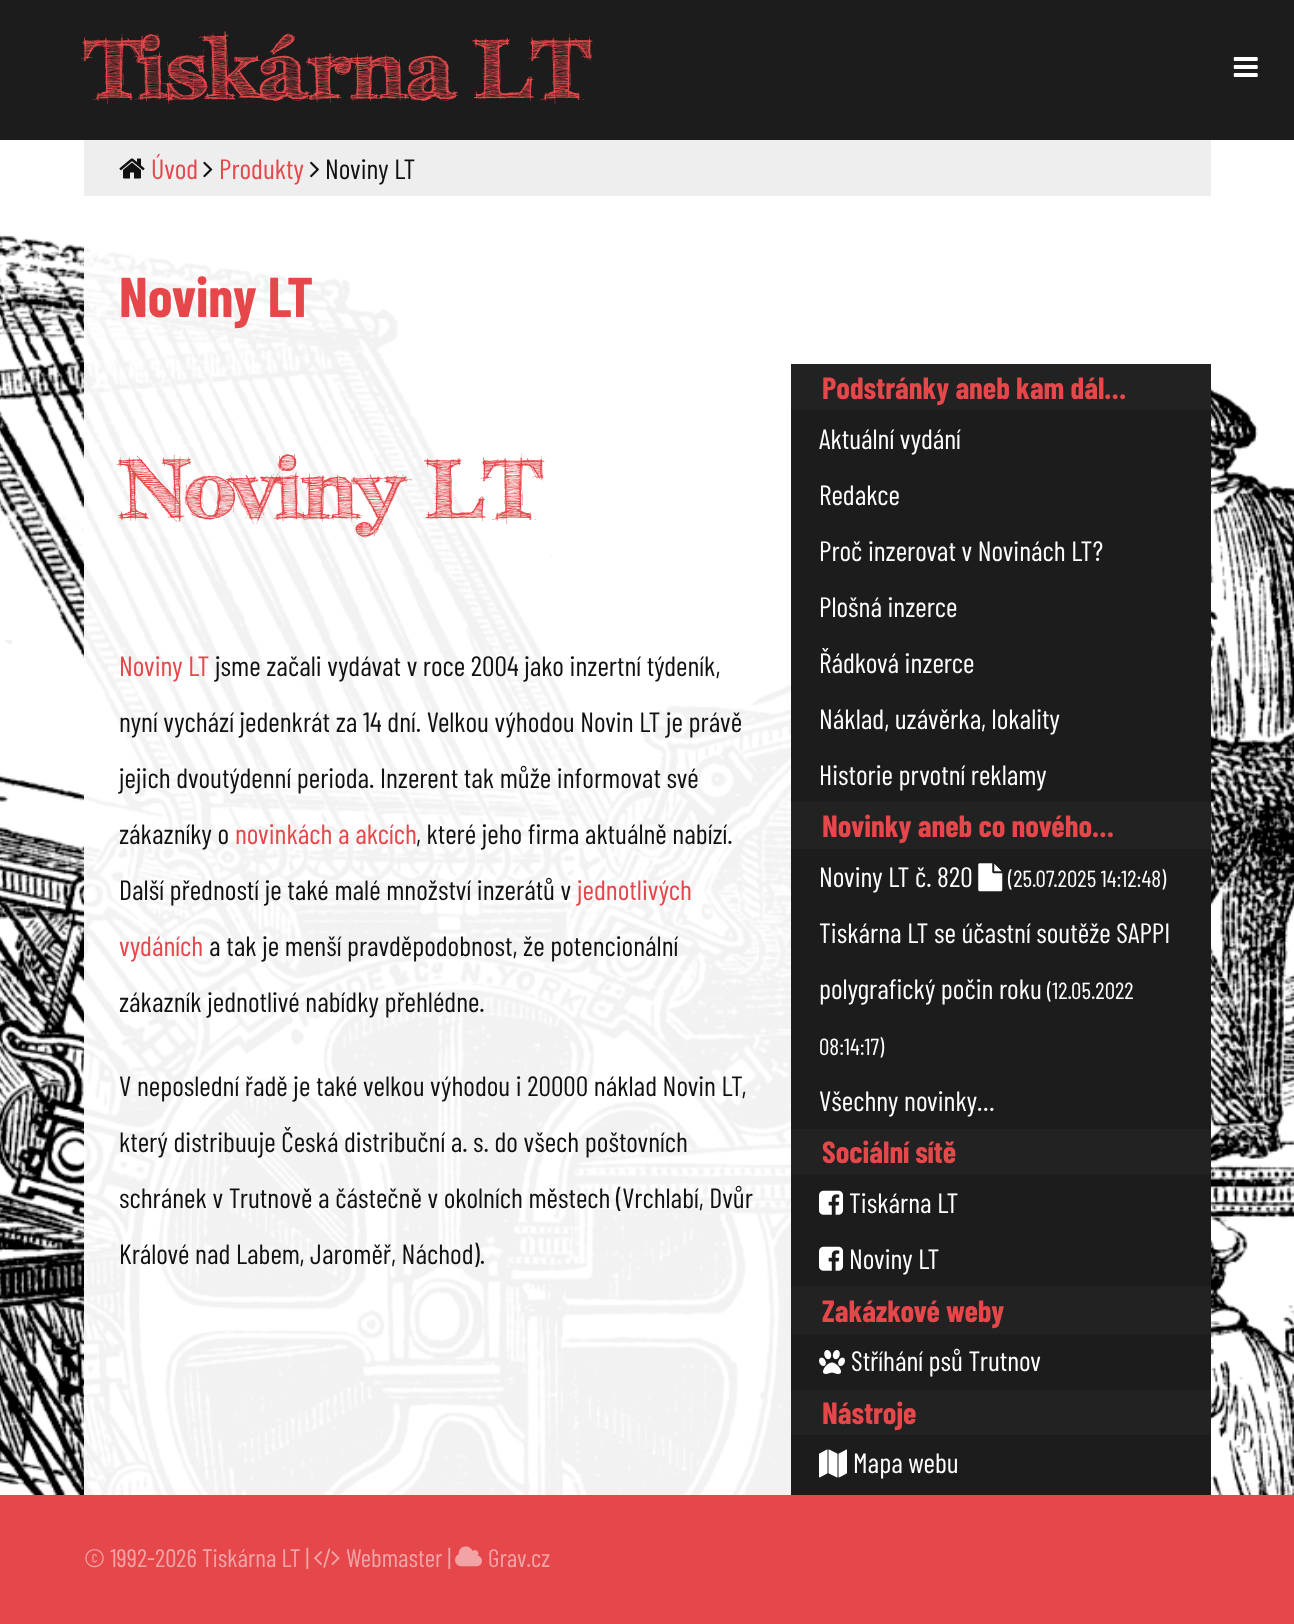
<svg xmlns="http://www.w3.org/2000/svg" width="1294" height="1624" viewBox="0 0 1294 1624">
  <rect width="100%" height="100%" fill="#ffffff"/>
  <image x="0" y="140" width="1294" height="1355" href="img1.png"/>
  <rect x="0" y="0" width="1294" height="140" fill="#1c1c1c"/>
  <text x="84" y="98" font-family="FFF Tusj" font-size="84" font-weight="bold" fill="#e5474b">Tiskárna LT</text>
  <image x="1233" y="57" width="25" height="20" href="img2.png"/>
  <rect x="84" y="211" width="1127" height="1284" fill="#ffffff" fill-opacity="0.95"/>
  <rect x="84" y="140" width="1127" height="56" fill="#eeeeee"/>
  <image x="119" y="158" width="26" height="21" href="img3.png"/>
  <text x="151" y="179" font-family="Barlow Condensed" font-size="28" fill="#e5474b">Úvod</text>
  <image x="203" y="161" width="10" height="17" href="img4.png"/>
  <text x="219" y="179" font-family="Barlow Condensed" font-size="28" fill="#e5474b">Produkty</text>
  <image x="310" y="161" width="9" height="17" href="img5.png"/>
  <text x="325" y="179" font-family="Barlow Condensed" font-size="28" fill="#111111">Noviny LT</text>
  <text x="119" y="317" font-family="Barlow Condensed" font-size="56" font-weight="bold" fill="#e5474b">Noviny LT</text>
  <text x="119" y="518" font-family="FFF Tusj" font-size="84" font-weight="bold" fill="#e5474b">Noviny LT</text>
  <text x="119" y="676" font-family="Barlow Condensed" font-size="28" fill="#e5474b">Noviny LT</text>
  <text x="215" y="676" font-family="Barlow Condensed" font-size="28" fill="#111111">jsme začali vydávat v roce 2004 jako inzertní týdeník,</text>
  <text x="119" y="732" font-family="Barlow Condensed" font-size="28" fill="#111111">nyní vychází jedenkrát za 14 dní. Velkou výhodou Novin LT je právě</text>
  <text x="119" y="788" font-family="Barlow Condensed" font-size="28" fill="#111111">jejich dvoutýdenní perioda. Inzerent tak může informovat své</text>
  <text x="119" y="844" font-family="Barlow Condensed" font-size="28" fill="#111111">zákazníky o</text>
  <text x="235" y="844" font-family="Barlow Condensed" font-size="28" fill="#e5474b">novinkách a akcích</text>
  <text x="416" y="844" font-family="Barlow Condensed" font-size="28" fill="#111111">, které jeho firma aktuálně nabízí.</text>
  <text x="119" y="900" font-family="Barlow Condensed" font-size="28" fill="#111111">Další předností je také malé množství inzerátů v</text>
  <text x="577" y="900" font-family="Barlow Condensed" font-size="28" fill="#e5474b">jednotlivých</text>
  <text x="119" y="956" font-family="Barlow Condensed" font-size="28" fill="#e5474b">vydáních</text>
  <text x="209" y="956" font-family="Barlow Condensed" font-size="28" fill="#111111">a tak je menší pravděpodobnost, že potencionální</text>
  <text x="119" y="1012" font-family="Barlow Condensed" font-size="28" fill="#111111">zákazník jednotlivé nabídky přehlédne.</text>
  <text x="119" y="1096" font-family="Barlow Condensed" font-size="28" fill="#111111">V neposlední řadě je také velkou výhodou i 20000 náklad Novin LT,</text>
  <text x="119" y="1152" font-family="Barlow Condensed" font-size="28" fill="#111111">který distribuuje Česká distribuční a. s. do všech poštovních</text>
  <text x="119" y="1208" font-family="Barlow Condensed" font-size="28" fill="#111111">schránek v Trutnově a částečně v okolních městech (Vrchlabí, Dvůr</text>
  <text x="119" y="1264" font-family="Barlow Condensed" font-size="28" fill="#111111">Králové nad Labem, Jaroměř, Náchod).</text>
  <rect x="791" y="410" width="420" height="1085" fill="#1c1c1c"/>
  <rect x="791" y="364" width="420" height="46" fill="#222222"/>
  <text x="822" y="399" font-family="Barlow Condensed" font-size="30.75" font-weight="bold" fill="#e5474b">Podstránky aneb kam dál…</text>
  <text x="819" y="449" font-family="Barlow Condensed" font-size="28" fill="#ffffff">Aktuální vydání</text>
  <text x="819" y="505" font-family="Barlow Condensed" font-size="28" fill="#ffffff">Redakce</text>
  <text x="819" y="561" font-family="Barlow Condensed" font-size="28" fill="#ffffff">Proč inzerovat v Novinách LT?</text>
  <text x="819" y="617" font-family="Barlow Condensed" font-size="28" fill="#ffffff">Plošná inzerce</text>
  <text x="819" y="673" font-family="Barlow Condensed" font-size="28" fill="#ffffff">Řádková inzerce</text>
  <text x="819" y="729" font-family="Barlow Condensed" font-size="28" fill="#ffffff">Náklad, uzávěrka, lokality</text>
  <text x="819" y="785" font-family="Barlow Condensed" font-size="28" fill="#ffffff">Historie prvotní reklamy</text>
  <rect x="791" y="802" width="420" height="47" fill="#222222"/>
  <text x="822" y="837" font-family="Barlow Condensed" font-size="30.75" font-weight="bold" fill="#e5474b">Novinky aneb co nového…</text>
  <text x="819" y="887" font-family="Barlow Condensed" font-size="28" fill="#ffffff">Noviny LT č. 820</text>
  <image x="978" y="863" width="25" height="29" href="img6.png"/>
  <text x="1008" y="887" font-family="Barlow Condensed" font-size="23.25" fill="#ffffff">(25.07.2025 14:12:48)</text>
  <text x="819" y="943" font-family="Barlow Condensed" font-size="28" fill="#ffffff">Tiskárna LT se účastní soutěže SAPPI</text>
  <text x="819" y="999" font-family="Barlow Condensed" font-size="28" fill="#ffffff">polygrafický počin roku</text>
  <text x="1047" y="999" font-family="Barlow Condensed" font-size="23.25" fill="#ffffff">(12.05.2022</text>
  <text x="819" y="1055" font-family="Barlow Condensed" font-size="23.25" fill="#ffffff">08:14:17)</text>
  <text x="819" y="1111" font-family="Barlow Condensed" font-size="28" fill="#ffffff">Všechny novinky…</text>
  <rect x="791" y="1129" width="420" height="45" fill="#222222"/>
  <text x="822" y="1163" font-family="Barlow Condensed" font-size="30.75" font-weight="bold" fill="#e5474b">Sociální sítě</text>
  <image x="819" y="1190" width="24" height="25" href="img7.png"/>
  <text x="849" y="1213" font-family="Barlow Condensed" font-size="28" fill="#ffffff">Tiskárna LT</text>
  <image x="819" y="1246" width="24" height="25" href="img7.png"/>
  <text x="849" y="1269" font-family="Barlow Condensed" font-size="28" fill="#ffffff">Noviny LT</text>
  <rect x="791" y="1286" width="420" height="48" fill="#222222"/>
  <text x="822" y="1322" font-family="Barlow Condensed" font-size="30.75" font-weight="bold" fill="#e5474b">Zakázkové weby</text>
  <image x="819" y="1350" width="26" height="24" href="img8.png"/>
  <text x="851" y="1371" font-family="Barlow Condensed" font-size="28" fill="#ffffff">Stříhání psů Trutnov</text>
  <rect x="791" y="1390" width="420" height="45" fill="#222222"/>
  <text x="822" y="1424" font-family="Barlow Condensed" font-size="30.75" font-weight="bold" fill="#e5474b">Nástroje</text>
  <image x="819" y="1449" width="28" height="29" href="img9.png"/>
  <text x="853" y="1473" font-family="Barlow Condensed" font-size="28" fill="#ffffff">Mapa webu</text>
  <rect x="0" y="1495" width="1294" height="129" fill="#e5474b"/>
  <text x="84" y="1567" font-family="Barlow Condensed" font-size="25.25" fill="#f2a3a5">© 1992-2026 Tiskárna LT |</text>
  <image x="314" y="1548" width="26" height="20" href="img10.png"/>
  <text x="346" y="1567" font-family="Barlow Condensed" font-size="25.25" fill="#f2a3a5">Webmaster |</text>
  <image x="455" y="1546" width="27" height="21" href="img11.png"/>
  <text x="488" y="1567" font-family="Barlow Condensed" font-size="25.25" fill="#f2a3a5">Grav.cz</text>
</svg>
